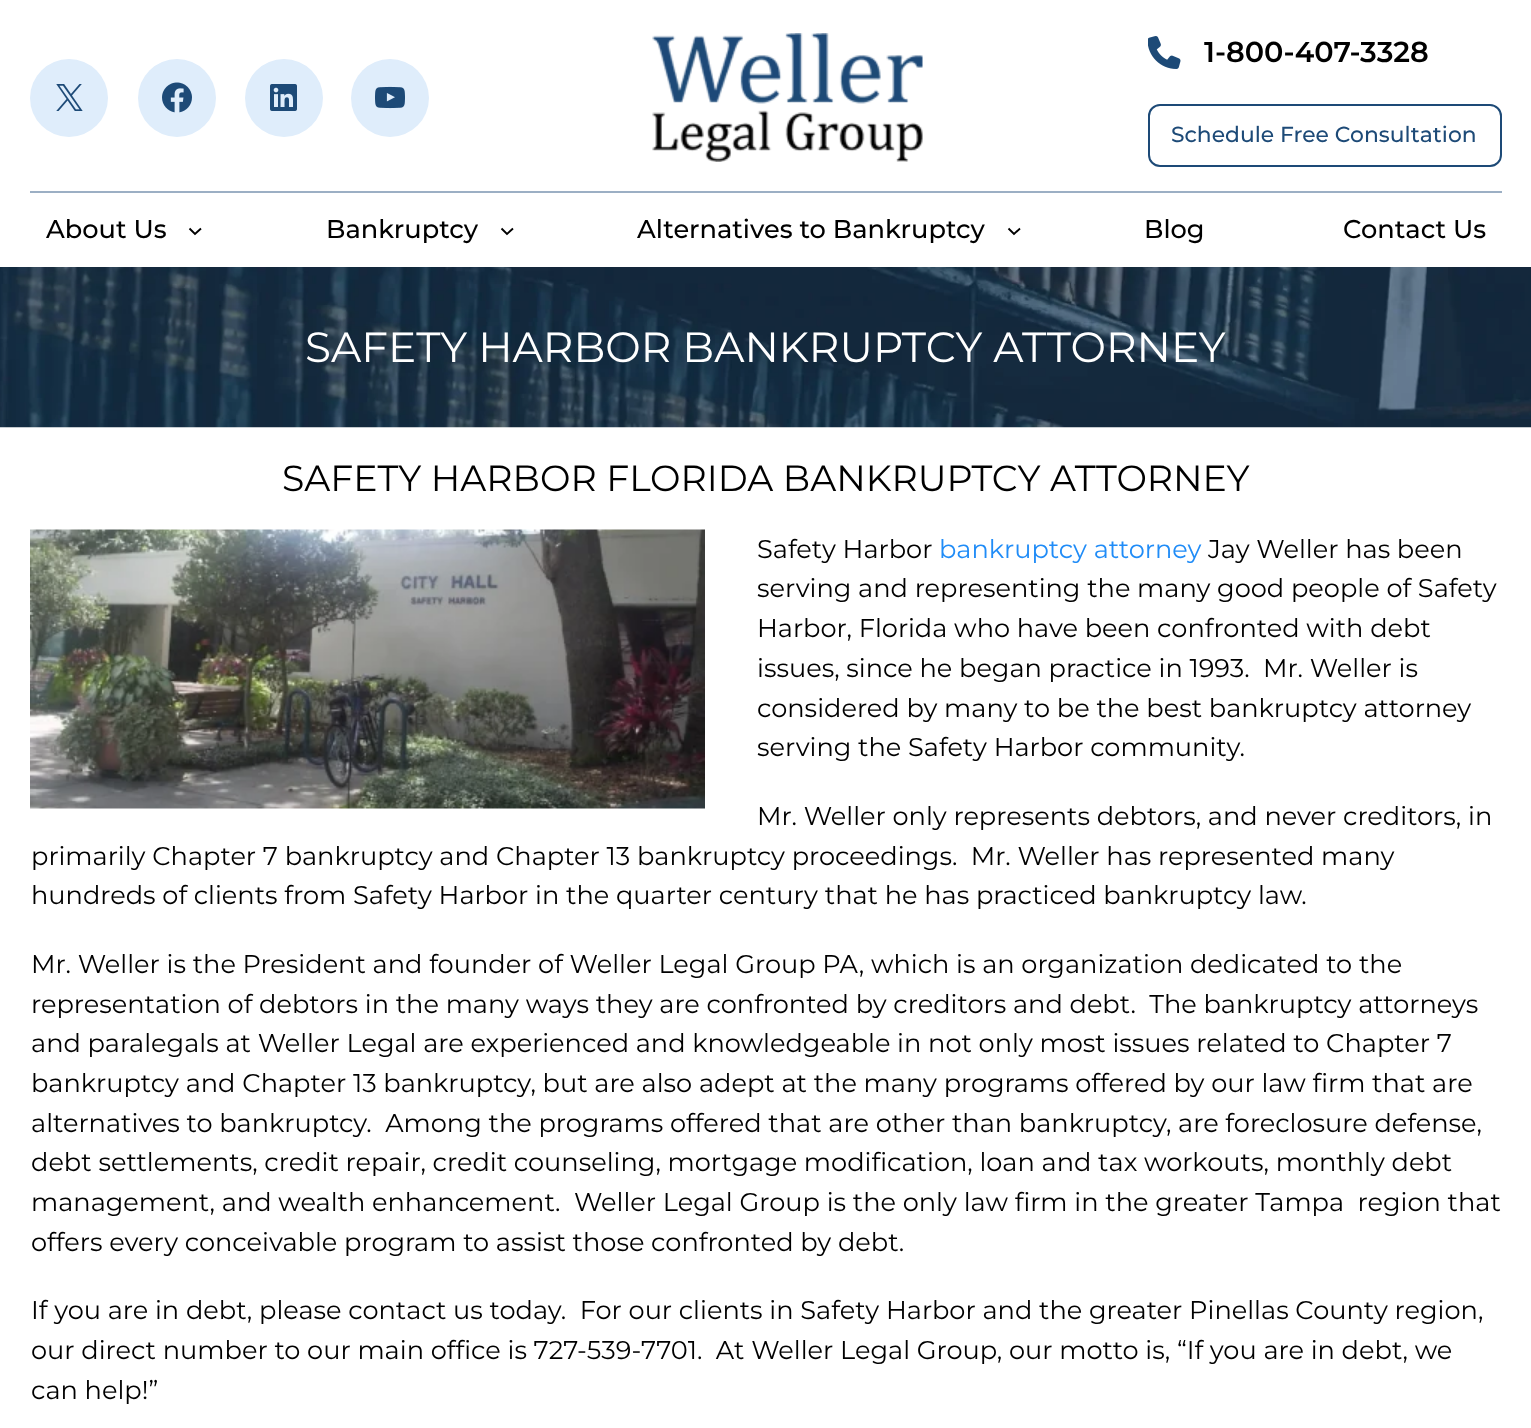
<svg xmlns="http://www.w3.org/2000/svg" width="1531" height="1428" viewBox="0 0 1531 1428">
  <rect width="100%" height="100%" fill="#ffffff"/>
  <rect x="30" y="191" width="1472" height="2" fill="#9cafc4"/>
  <circle cx="69" cy="98" r="39" fill="#dfedfb"/>
  <image x="56" y="84" width="27" height="27" href="img1.png"/>
  <circle cx="177" cy="98" r="39" fill="#dfedfb"/>
  <image x="162" y="82" width="30" height="31" href="img2.png"/>
  <circle cx="284" cy="98" r="39" fill="#dfedfb"/>
  <image x="270" y="84" width="27" height="27" href="img3.png"/>
  <circle cx="390" cy="98" r="39" fill="#dfedfb"/>
  <image x="375" y="86" width="30" height="23" href="img4.png"/>
  <image x="652" y="33" width="271" height="129" href="img5.png"/>
  <image x="1148" y="36" width="33" height="33" href="img6.png"/>
  <text x="1204" y="62" font-family="Montserrat" font-size="28.75" font-weight="600" fill="#000000">1-800-407-3328</text>
  <rect x="1149" y="105" width="352" height="61" rx="11" fill="none" stroke="#1d4a77" stroke-width="2"/>
  <text x="1171" y="142" font-family="Montserrat" font-size="21.8" font-weight="500" fill="#1d4a77">Schedule Free Consultation</text>
  <text x="46" y="238" font-family="Montserrat" font-size="25.65" font-weight="500" fill="#000000">About Us</text>
  <path d="M189.5 228.5L195 234L201 228.5" fill="none" stroke="#000000" stroke-width="1.9"/>
  <text x="326" y="238" font-family="Montserrat" font-size="25.65" font-weight="500" fill="#000000">Bankruptcy</text>
  <path d="M501.5 228.5L507 234L513 228.5" fill="none" stroke="#000000" stroke-width="1.9"/>
  <text x="637" y="238" font-family="Montserrat" font-size="25.65" font-weight="500" fill="#000000">Alternatives to Bankruptcy</text>
  <path d="M1008.5 228.5L1014 234L1020 228.5" fill="none" stroke="#000000" stroke-width="1.9"/>
  <text x="1144" y="238" font-family="Montserrat" font-size="25.65" font-weight="500" fill="#000000">Blog</text>
  <text x="1343" y="238" font-family="Montserrat" font-size="25.65" font-weight="500" fill="#000000">Contact Us</text>
  <image x="0" y="267" width="1531" height="161" href="img7.png"/>
  <text x="305" y="362" font-family="Montserrat" font-size="42.25" fill="#ffffff">SAFETY HARBOR BANKRUPTCY ATTORNEY</text>
  <text x="282" y="491" font-family="Montserrat" font-size="36.3" fill="#000000">SAFETY HARBOR FLORIDA BANKRUPTCY ATTORNEY</text>
  <image x="30" y="529" width="675" height="280" href="img8.png"/>
  <text x="757" y="558" font-family="Montserrat" font-size="25.65" fill="#000000">Safety Harbor</text>
  <text x="939" y="558" font-family="Montserrat" font-size="25.65" fill="#208cf7">bankruptcy attorney</text>
  <text x="1208" y="558" font-family="Montserrat" font-size="25.65" fill="#000000">Jay Weller has been</text>
  <text x="757" y="597" font-family="Montserrat" font-size="25.65" fill="#000000">serving and representing the many good people of Safety</text>
  <text x="757" y="637" font-family="Montserrat" font-size="25.65" fill="#000000">Harbor, Florida who have been confronted with debt</text>
  <text x="757" y="677" font-family="Montserrat" font-size="25.65" fill="#000000" xml:space="preserve">issues, since he began practice in 1993.  Mr. Weller is</text>
  <text x="757" y="717" font-family="Montserrat" font-size="25.65" fill="#000000">considered by many to be the best bankruptcy attorney</text>
  <text x="757" y="756" font-family="Montserrat" font-size="25.65" fill="#000000">serving the Safety Harbor community.</text>
  <text x="757" y="825" font-family="Montserrat" font-size="25.65" fill="#000000">Mr. Weller only represents debtors, and never creditors, in</text>
  <text x="31" y="865" font-family="Montserrat" font-size="25.65" fill="#000000" xml:space="preserve">primarily Chapter 7 bankruptcy and Chapter 13 bankruptcy proceedings.  Mr. Weller has represented many</text>
  <text x="31" y="904" font-family="Montserrat" font-size="25.65" fill="#000000">hundreds of clients from Safety Harbor in the quarter century that he has practiced bankruptcy law.</text>
  <text x="31" y="973" font-family="Montserrat" font-size="25.65" fill="#000000">Mr. Weller is the President and founder of Weller Legal Group PA, which is an organization dedicated to the</text>
  <text x="31" y="1013" font-family="Montserrat" font-size="25.65" fill="#000000" xml:space="preserve">representation of debtors in the many ways they are confronted by creditors and debt.  The bankruptcy attorneys</text>
  <text x="31" y="1052" font-family="Montserrat" font-size="25.65" fill="#000000">and paralegals at Weller Legal are experienced and knowledgeable in not only most issues related to Chapter 7</text>
  <text x="31" y="1092" font-family="Montserrat" font-size="25.65" fill="#000000">bankruptcy and Chapter 13 bankruptcy, but are also adept at the many programs offered by our law firm that are</text>
  <text x="31" y="1132" font-family="Montserrat" font-size="25.65" fill="#000000" xml:space="preserve">alternatives to bankruptcy.  Among the programs offered that are other than bankruptcy, are foreclosure defense,</text>
  <text x="31" y="1171" font-family="Montserrat" font-size="25.65" fill="#000000">debt settlements, credit repair, credit counseling, mortgage modification, loan and tax workouts, monthly debt</text>
  <text x="31" y="1211" font-family="Montserrat" font-size="25.65" fill="#000000" xml:space="preserve">management, and wealth enhancement.  Weller Legal Group is the only law firm in the greater Tampa  region that</text>
  <text x="31" y="1251" font-family="Montserrat" font-size="25.65" fill="#000000">offers every conceivable program to assist those confronted by debt.</text>
  <text x="31" y="1319" font-family="Montserrat" font-size="25.65" fill="#000000" xml:space="preserve">If you are in debt, please contact us today.  For our clients in Safety Harbor and the greater Pinellas County region,</text>
  <text x="31" y="1359" font-family="Montserrat" font-size="25.65" fill="#000000" xml:space="preserve">our direct number to our main office is 727-539-7701.  At Weller Legal Group, our motto is, “If you are in debt, we</text>
  <text x="31" y="1399" font-family="Montserrat" font-size="25.65" fill="#000000">can help!”</text>
</svg>
